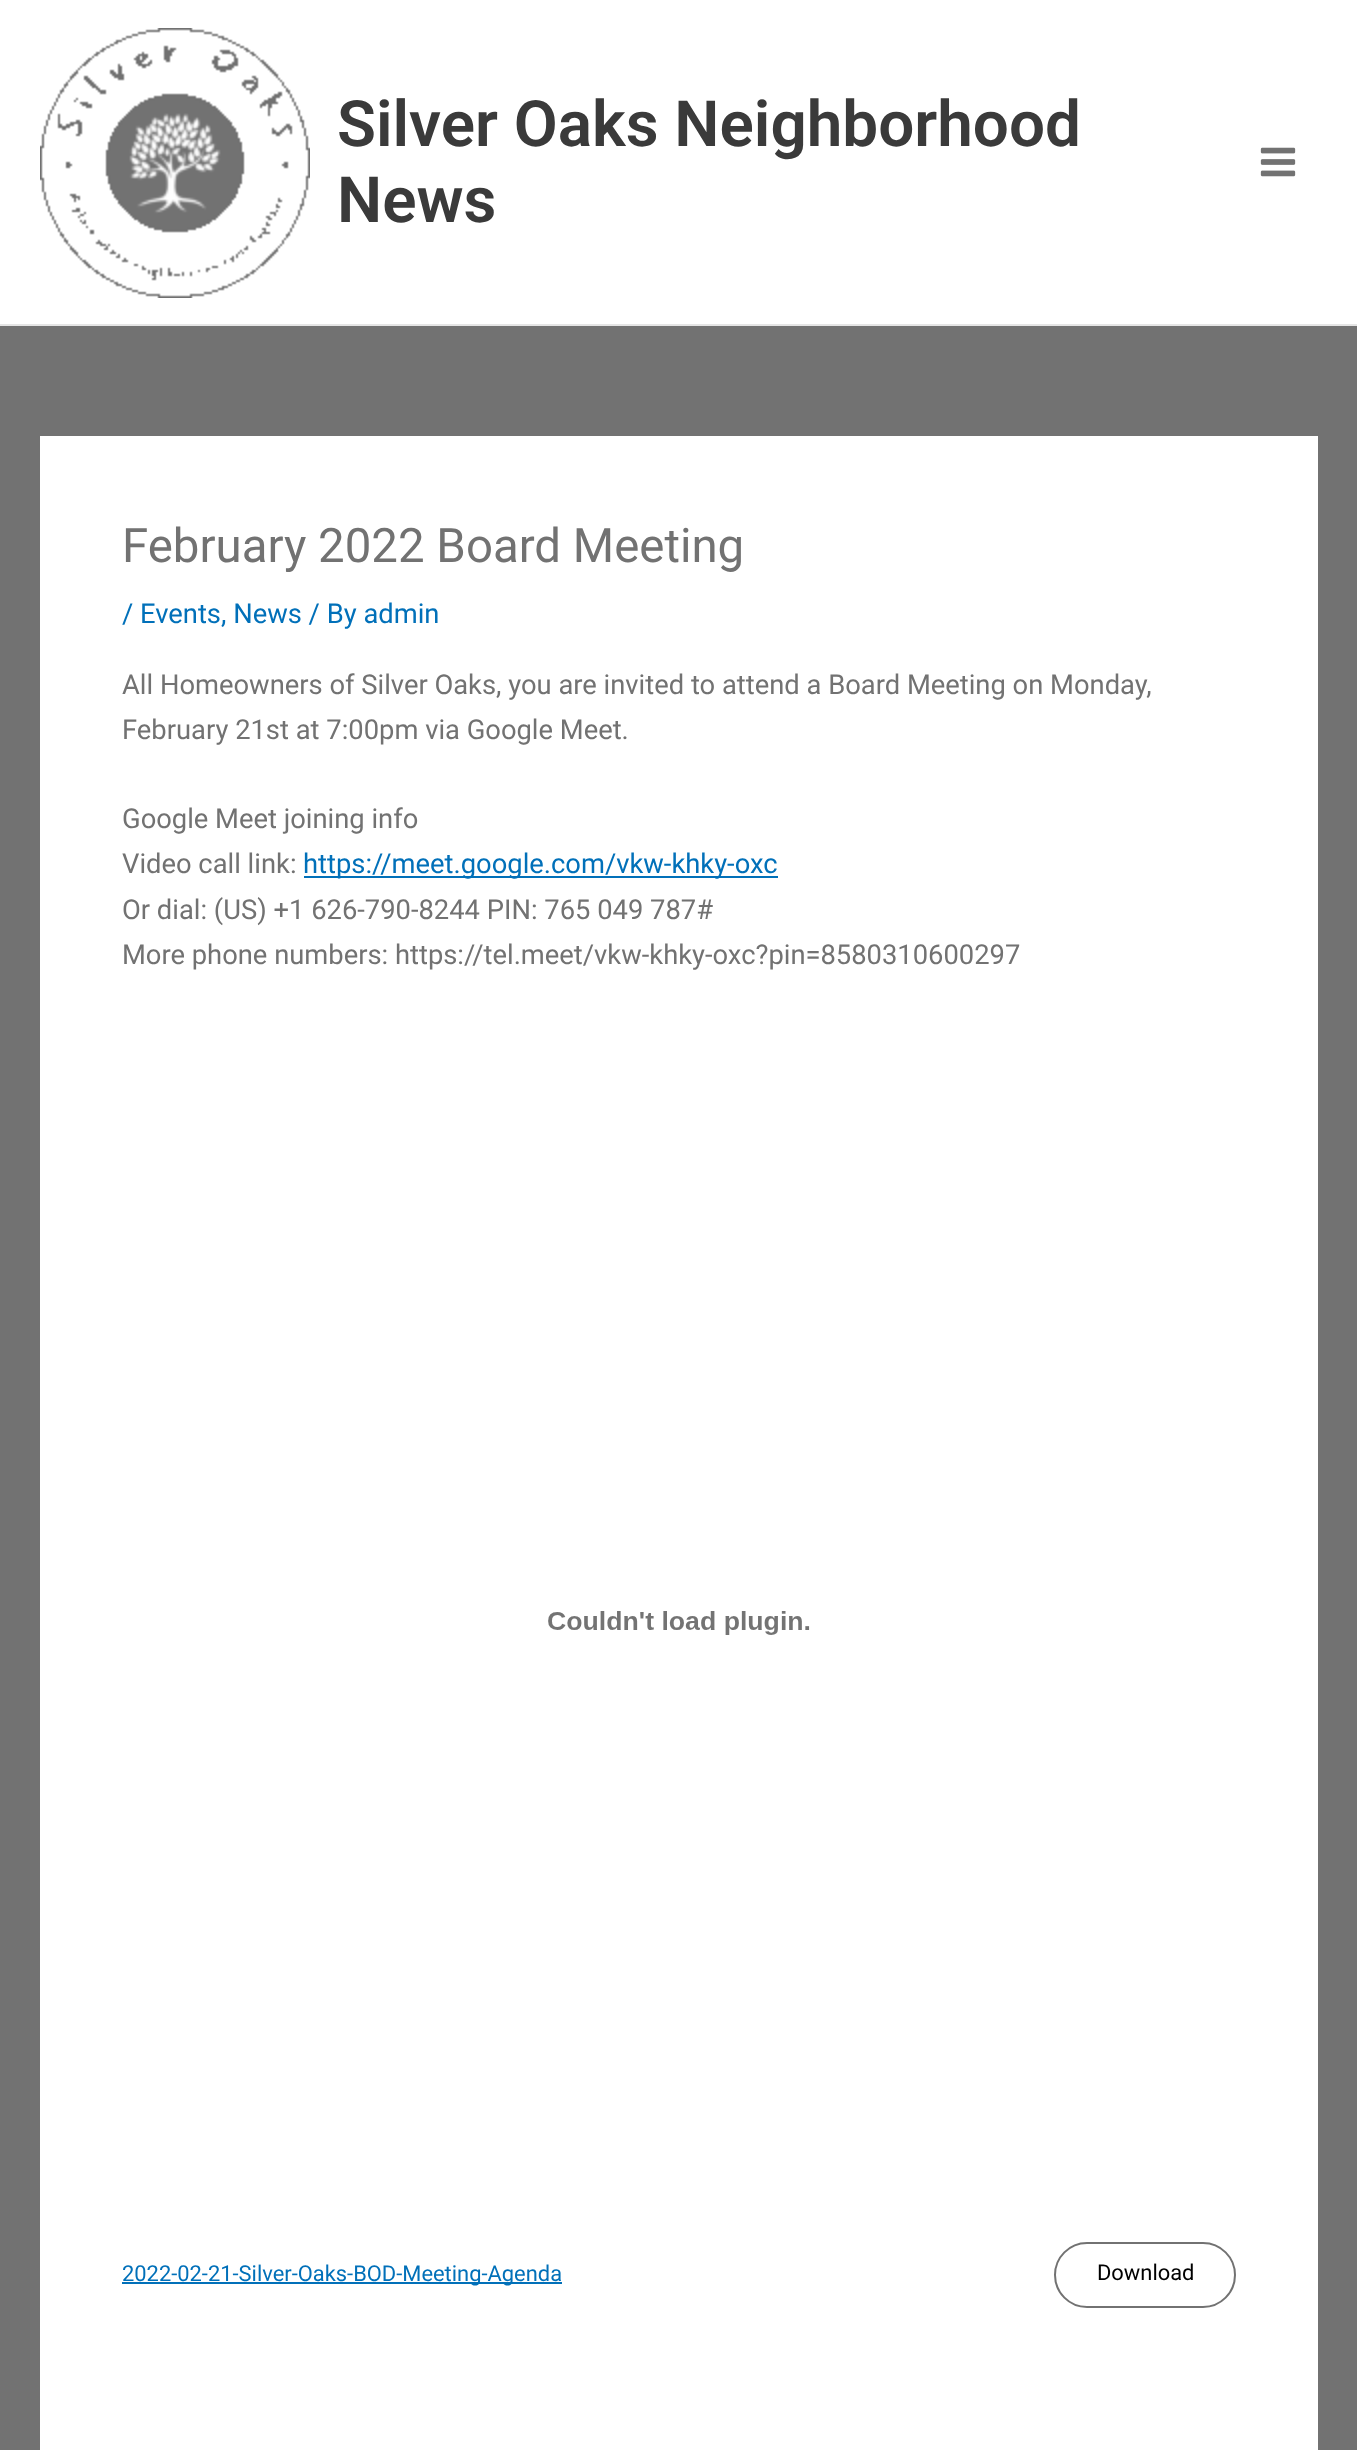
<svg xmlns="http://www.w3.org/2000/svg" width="1357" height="2450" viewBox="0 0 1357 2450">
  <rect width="100%" height="100%" fill="#727272"/>
  <rect x="0" y="0" width="1357" height="324" fill="#ffffff"/>
  <rect x="0" y="324" width="1357" height="2" fill="#e5e5e5"/>
  <image x="40" y="28" width="270" height="270" href="img1.png"/>
  <text x="337" y="146" font-family="Roboto" font-size="63.8" font-weight="600" fill="#3a3a3a">Silver Oaks Neighborhood</text>
  <text x="337" y="222" font-family="Roboto" font-size="63.8" font-weight="600" fill="#3a3a3a">News</text>
  <image x="1260" y="147" width="36" height="30" href="img2.png"/>
  <rect x="40" y="436" width="1278" height="2014" fill="#ffffff"/>
  <text x="122" y="562" font-family="Roboto" font-size="47.4" fill="#727272">February 2022 Board Meeting</text>
  <text x="122" y="623" font-family="Roboto" font-size="27.35" fill="#0170b9">/ Events, News / By admin</text>
  <text x="122" y="694" font-family="Roboto" font-size="27.35" fill="#727272">All Homeowners of Silver Oaks, you are invited to attend a Board Meeting on Monday,</text>
  <text x="122" y="739" font-family="Roboto" font-size="27.35" fill="#727272">February 21st at 7:00pm via Google Meet.</text>
  <text x="122" y="828" font-family="Roboto" font-size="27.35" fill="#727272">Google Meet joining info</text>
  <text x="122" y="873" font-family="Roboto" font-size="27.35" fill="#727272">Video call link:</text>
  <rect x="304" y="876" width="474" height="2" fill="#0170b9"/>
  <text x="303" y="873" font-family="Roboto" font-size="27.35" fill="#0170b9">https://meet.google.com/vkw-khky-oxc</text>
  <text x="122" y="919" font-family="Roboto" font-size="27.35" fill="#727272">Or dial: (US) +1 626-790-8244 PIN: 765 049 787#</text>
  <text x="122" y="964" font-family="Roboto" font-size="27.35" fill="#727272">More phone numbers: https://tel.meet/vkw-khky-oxc?pin=8580310600297</text>
  <image x="548" y="1611" width="262" height="24" href="img3.png"/>
  <rect x="122" y="2282" width="440" height="2" fill="#0170b9"/>
  <text x="122" y="2281" font-family="Roboto" font-size="21.9" fill="#0170b9">2022-02-21-Silver-Oaks-BOD-Meeting-Agenda</text>
  <rect x="1055" y="2243" width="180" height="64" rx="32" fill="none" stroke="#727272" stroke-width="2"/>
  <text x="1097" y="2280" font-family="Roboto" font-size="21.9" fill="#000000">Download</text>
</svg>
